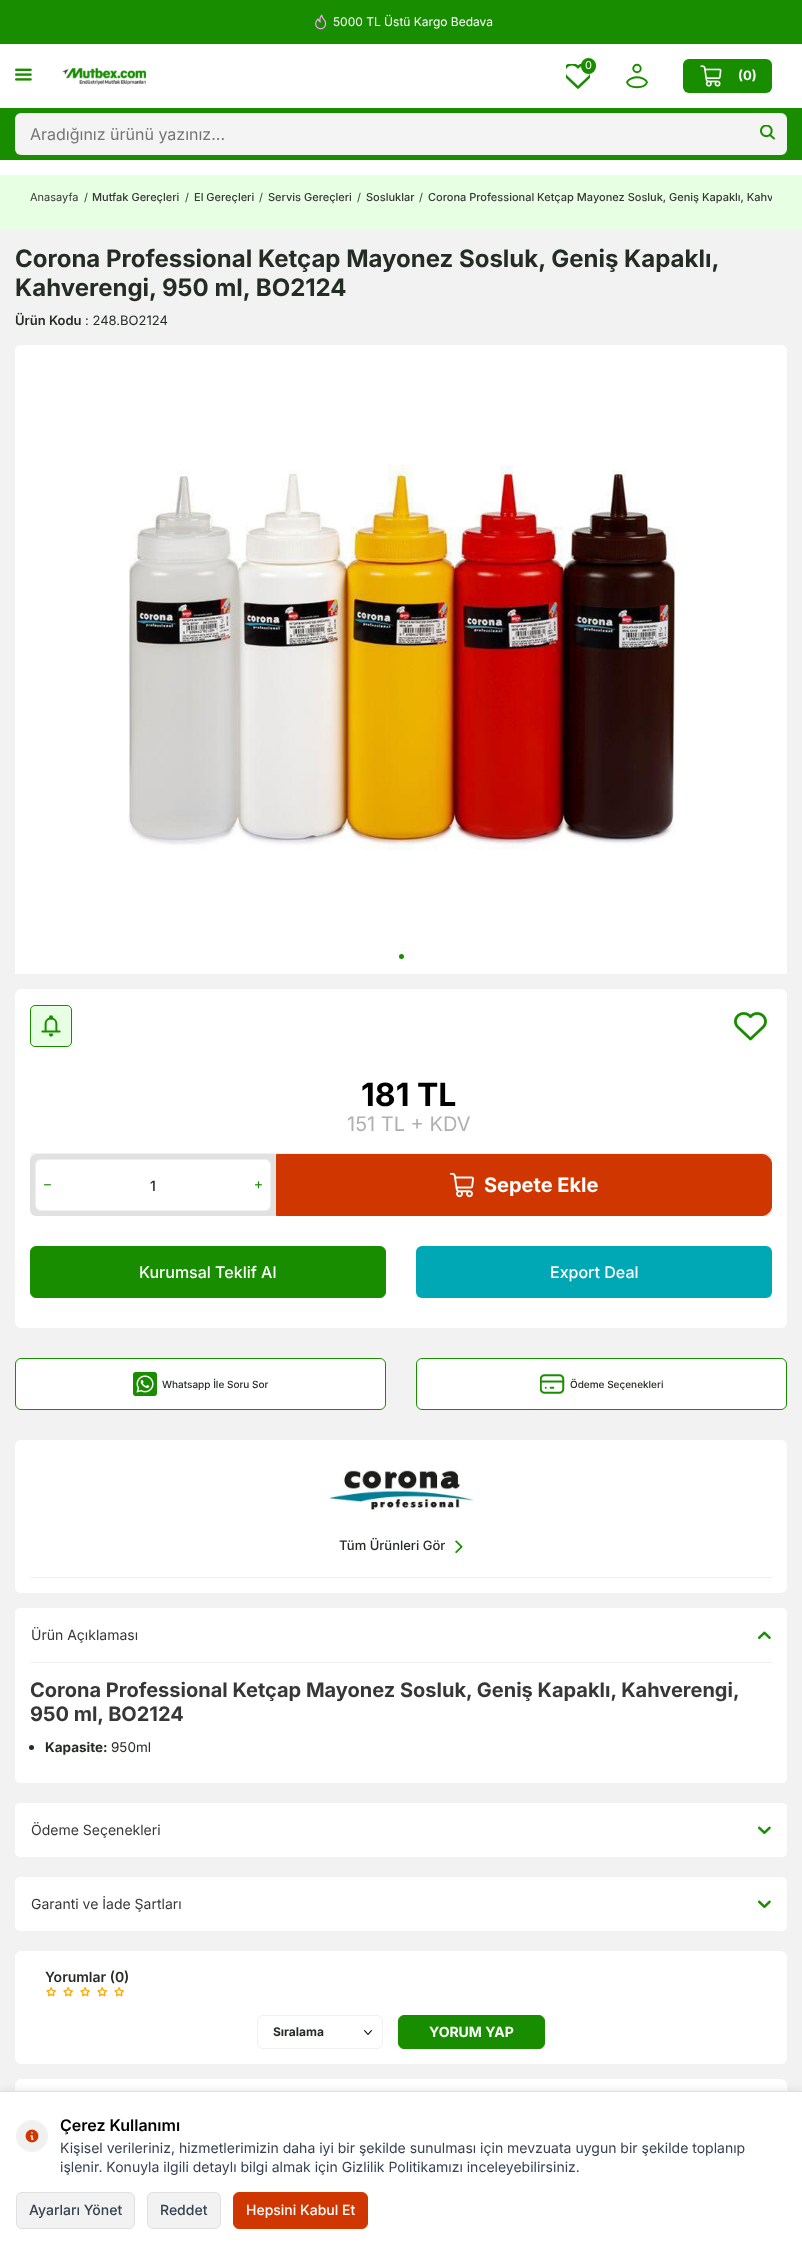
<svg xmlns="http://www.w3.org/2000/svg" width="802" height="2253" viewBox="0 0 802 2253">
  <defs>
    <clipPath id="clip1"><rect x="30" y="190" width="742" height="25"/></clipPath>
    <filter id="blur1" x="-50%" y="-200%" width="200%" height="500%"><feGaussianBlur stdDeviation="5"/></filter>
  </defs>
  <rect width="100%" height="100%" fill="#f2f2f2"/>
  <rect x="0" y="0" width="802" height="44" fill="#198d00"/>
  <image x="315" y="14" width="12" height="16" href="img1.png"/>
  <text x="333" y="26" font-family="Inter" font-size="12" fill="#ffffff">5000 TL Üstü Kargo Bedava</text>
  <rect x="0" y="44" width="802" height="131" fill="#ffffff"/>
  <image x="15" y="68" width="17" height="13" href="img2.png"/>
  <image x="62" y="68" width="84" height="17" href="img3.png"/>
  <image x="566" y="64" width="24" height="25" href="img4.png"/>
  <rect x="581" y="58" width="15" height="16" rx="7.5" fill="#198d00"/>
  <text x="585" y="69" font-family="Inter" font-size="11" fill="#ffffff">0</text>
  <image x="626" y="63" width="22" height="26" href="img5.png"/>
  <rect x="683" y="59" width="89" height="34" rx="6" fill="#198d00"/>
  <image x="700" y="65" width="22" height="22" href="img6.png"/>
  <text x="738" y="80" font-family="Inter" font-size="13" font-weight="bold" fill="#ffffff">(0)</text>
  <rect x="0" y="108" width="802" height="52" fill="#198d00"/>
  <rect x="15" y="113" width="772" height="42" rx="6" fill="#f4f4f4"/>
  <text x="30" y="140" font-family="Inter" font-size="16" fill="#757575">Aradığınız ürünü yazınız...</text>
  <image x="760" y="125" width="15" height="15" href="img7.png"/>
  <rect x="0" y="175" width="802" height="55" fill="#e7ffe3"/>
  <text x="30" y="201" font-family="Inter" font-size="11" fill="#373738">Anasayfa</text>
  <text x="84" y="201" font-family="Inter" font-size="11" fill="#373738">/</text>
  <text x="92" y="201" font-family="Inter" font-size="11" font-weight="500" fill="#373738">Mutfak Gereçleri</text>
  <text x="185" y="201" font-family="Inter" font-size="11" fill="#373738">/</text>
  <text x="194" y="201" font-family="Inter" font-size="11" font-weight="500" fill="#373738">El Gereçleri</text>
  <text x="259" y="201" font-family="Inter" font-size="11" fill="#373738">/</text>
  <text x="268" y="201" font-family="Inter" font-size="11" font-weight="500" fill="#373738">Servis Gereçleri</text>
  <text x="357" y="201" font-family="Inter" font-size="11" fill="#373738">/</text>
  <text x="366" y="201" font-family="Inter" font-size="11" font-weight="500" fill="#373738">Sosluklar</text>
  <text x="419" y="201" font-family="Inter" font-size="11" fill="#373738">/</text>
  <g clip-path="url(#clip1)">
    <text x="428" y="201" font-family="Inter" font-size="11" font-weight="500" fill="#373738">Corona Professional Ketçap Mayonez Sosluk, Geniş Kapaklı, Kahv</text>
  </g>
  <text x="15" y="267" font-family="Inter" font-size="24" font-weight="bold" fill="#252b25">Corona Professional Ketçap Mayonez Sosluk, Geniş Kapaklı,</text>
  <text x="15" y="296" font-family="Inter" font-size="24" font-weight="bold" fill="#252b25">Kahverengi, 950 ml, BO2124</text>
  <text x="15" y="325" font-family="Inter" font-size="13" font-weight="600" fill="#252b25">Ürün Kodu</text>
  <text x="85" y="325" font-family="Inter" font-size="13" fill="#252b25">: 248.BO2124</text>
  <path d="M21 345H781C784.5 345 787 347.5 787 351V974H15V351C15 347.5 17.5 345 21 345Z" fill="#ffffff"/>
  <image x="127" y="465" width="549" height="385" href="img8.png"/>
  <circle cx="401.5" cy="956.5" r="2.5" fill="#198d00"/>
  <rect x="15" y="989" width="772" height="339" rx="6" fill="#ffffff"/>
  <image x="30" y="1005" width="42" height="42" href="img9.png"/>
  <image x="734" y="1012" width="33" height="29" href="img10.png"/>
  <rect x="30" y="1153" width="742" height="1" fill="#f0f0f0"/>
  <text x="361" y="1106" font-family="Inter" font-size="32" font-weight="bold" fill="#000000">181 TL</text>
  <text x="347" y="1131" font-family="Inter" font-size="20" fill="#b0b0b0">151 TL + KDV</text>
  <rect x="30" y="1154" width="742" height="62" rx="6" fill="#e1e1e1"/>
  <rect x="35.5" y="1159.5" width="235" height="51" rx="5.5" fill="#ffffff" stroke="#f0f0f0"/>
  <image x="44" y="1184" width="7" height="2" href="img11.png"/>
  <text x="150" y="1191" font-family="Inter" font-size="14" font-weight="500" fill="#252b25">1</text>
  <image x="255" y="1181" width="7" height="8" href="img12.png"/>
  <path d="M276.5 1154.5H762C767 1154.5 771.5 1159 771.5 1164V1206C771.5 1211 767 1215.5 762 1215.5H276.5Z" fill="#d03700" stroke="#d03700"/>
  <image x="449" y="1173" width="25" height="25" href="img13.png"/>
  <text x="484" y="1192" font-family="Inter" font-size="20" font-weight="bold" fill="#ffffff">Sepete Ekle</text>
  <rect x="30.5" y="1246.5" width="355" height="51" rx="5.5" fill="#198d00" stroke="#198d00"/>
  <text x="139" y="1278" font-family="Inter" font-size="16" font-weight="500" fill="#ffffff">Kurumsal Teklif Al</text>
  <rect x="416" y="1246" width="356" height="52" rx="6" fill="#00a8b5"/>
  <text x="550" y="1278" font-family="Inter" font-size="16" font-weight="500" fill="#ffffff">Export Deal</text>
  <rect x="15.5" y="1358.5" width="370" height="51" rx="5.5" fill="#ffffff" stroke="#198d00"/>
  <image x="133" y="1372" width="24" height="24" href="img14.png"/>
  <text x="162" y="1388" font-family="Inter" font-size="10" font-weight="500" fill="#252b25">Whatsapp İle Soru Sor</text>
  <rect x="416.5" y="1358.5" width="370" height="51" rx="5.5" fill="#ffffff" stroke="#198d00"/>
  <image x="540" y="1374" width="25" height="20" href="img15.png"/>
  <text x="570" y="1388" font-family="Inter" font-size="10" font-weight="500" fill="#252b25">Ödeme Seçenekleri</text>
  <rect x="15" y="1440" width="772" height="153" rx="6" fill="#ffffff"/>
  <rect x="30" y="1577" width="742" height="1" fill="#f0f0f0"/>
  <image x="329" y="1470" width="145" height="40" href="img16.png"/>
  <text x="339" y="1550" font-family="Inter" font-size="13" font-weight="500" fill="#252b25">Tüm Ürünleri Gör</text>
  <image x="455" y="1540" width="8" height="14" href="img17.png"/>
  <path d="M20 1608H782C785 1608 787 1610 787 1613V1662H15V1613C15 1610 17 1608 20 1608Z" fill="#ffffff"/>
  <text x="31" y="1640" font-family="Inter" font-size="14" fill="#373738">Ürün Açıklaması</text>
  <image x="758" y="1631" width="13" height="8" href="img18.png"/>
  <path d="M15 1662H787V1778C787 1781 785 1783 782 1783H20C17 1783 15 1781 15 1778Z" fill="#ffffff"/>
  <rect x="30" y="1662" width="742" height="1" fill="#f0f0f0"/>
  <text x="30" y="1697" font-family="Inter" font-size="20" font-weight="bold" fill="#373738">Corona Professional Ketçap Mayonez Sosluk, Geniş Kapaklı, Kahverengi,</text>
  <text x="30" y="1721" font-family="Inter" font-size="20" font-weight="bold" fill="#373738">950 ml, BO2124</text>
  <circle cx="31.5" cy="1747.5" r="2.5" fill="#252b25"/>
  <text x="45" y="1752" font-family="Inter" font-size="13.5" font-weight="bold" fill="#252b25">Kapasite:</text>
  <text x="111" y="1752" font-family="Inter" font-size="13.5" fill="#252b25">950ml</text>
  <rect x="15" y="1803" width="772" height="54" rx="5" fill="#ffffff"/>
  <text x="31" y="1835" font-family="Inter" font-size="14" fill="#373738">Ödeme Seçenekleri</text>
  <image x="758" y="1826" width="13" height="8" href="img19.png"/>
  <rect x="15" y="1877" width="772" height="54" rx="5" fill="#ffffff"/>
  <text x="31" y="1909" font-family="Inter" font-size="14" fill="#373738">Garanti ve İade Şartları</text>
  <image x="758" y="1900" width="13" height="8" href="img19.png"/>
  <rect x="15" y="1951" width="772" height="113" rx="6" fill="#ffffff"/>
  <text x="45" y="1982" font-family="Inter" font-size="14" font-weight="600" fill="#252b25">Yorumlar (0)</text>
  <image x="46" y="1987" width="10" height="10" href="img20.png"/>
  <image x="63" y="1987" width="10" height="10" href="img20.png"/>
  <image x="80" y="1987" width="10" height="10" href="img20.png"/>
  <image x="97" y="1987" width="10" height="10" href="img20.png"/>
  <image x="114" y="1987" width="10" height="10" href="img20.png"/>
  <image x="364" y="2030" width="8" height="5" href="img21.png"/>
  <rect x="257.5" y="2015.5" width="125" height="33" rx="5.5" fill="none" stroke="#f0f0f0"/>
  <text x="273" y="2036" font-family="Inter" font-size="12" font-weight="bold" fill="#252b25">Sıralama</text>
  <rect x="398.5" y="2015.5" width="146" height="33" rx="5.5" fill="#198d00" stroke="#198d00"/>
  <text x="429" y="2037" font-family="Inter" font-size="14" font-weight="bold" fill="#ffffff">YORUM YAP</text>
  <rect x="15" y="2079" width="772" height="45" rx="6" fill="#ffffff"/>
  <rect x="0" y="2091" width="802" height="162" fill="#000000" fill-opacity="0.1" filter="url(#blur1)"/>
  <rect x="0" y="2092" width="802" height="161" fill="#ffffff"/>
  <rect x="0" y="2091" width="802" height="1" fill="#e0e0e0"/>
  <circle cx="32" cy="2136" r="16" fill="#f0f0f0"/>
  <image x="25" y="2129" width="14" height="14" href="img22.png"/>
  <text x="60" y="2131" font-family="Inter" font-size="16" font-weight="600" fill="#000000">Çerez Kullanımı</text>
  <text x="60" y="2153" font-family="Inter" font-size="14" fill="#374151">Kişisel verileriniz, hizmetlerimizin daha iyi bir şekilde sunulması için mevzuata uygun bir şekilde toplanıp</text>
  <text x="60" y="2172" font-family="Inter" font-size="14" fill="#374151">işlenir. Konuyla ilgili detaylı bilgi almak için Gizlilik Politikamızı inceleyebilirsiniz.</text>
  <rect x="16.5" y="2192.5" width="118" height="36" rx="5.5" fill="#f2f2f2" stroke="#e0e0e0"/>
  <text x="29" y="2215" font-family="Inter" font-size="14" font-weight="500" fill="#374151">Ayarları Yönet</text>
  <rect x="147.5" y="2192.5" width="73" height="36" rx="5.5" fill="#f2f2f2" stroke="#e0e0e0"/>
  <text x="160" y="2215" font-family="Inter" font-size="14" font-weight="500" fill="#374151">Reddet</text>
  <rect x="233.5" y="2192.5" width="134" height="36" rx="5.5" fill="#d03700" stroke="#d03700"/>
  <text x="246" y="2215" font-family="Inter" font-size="14" font-weight="500" fill="#ffffff">Hepsini Kabul Et</text>
</svg>
